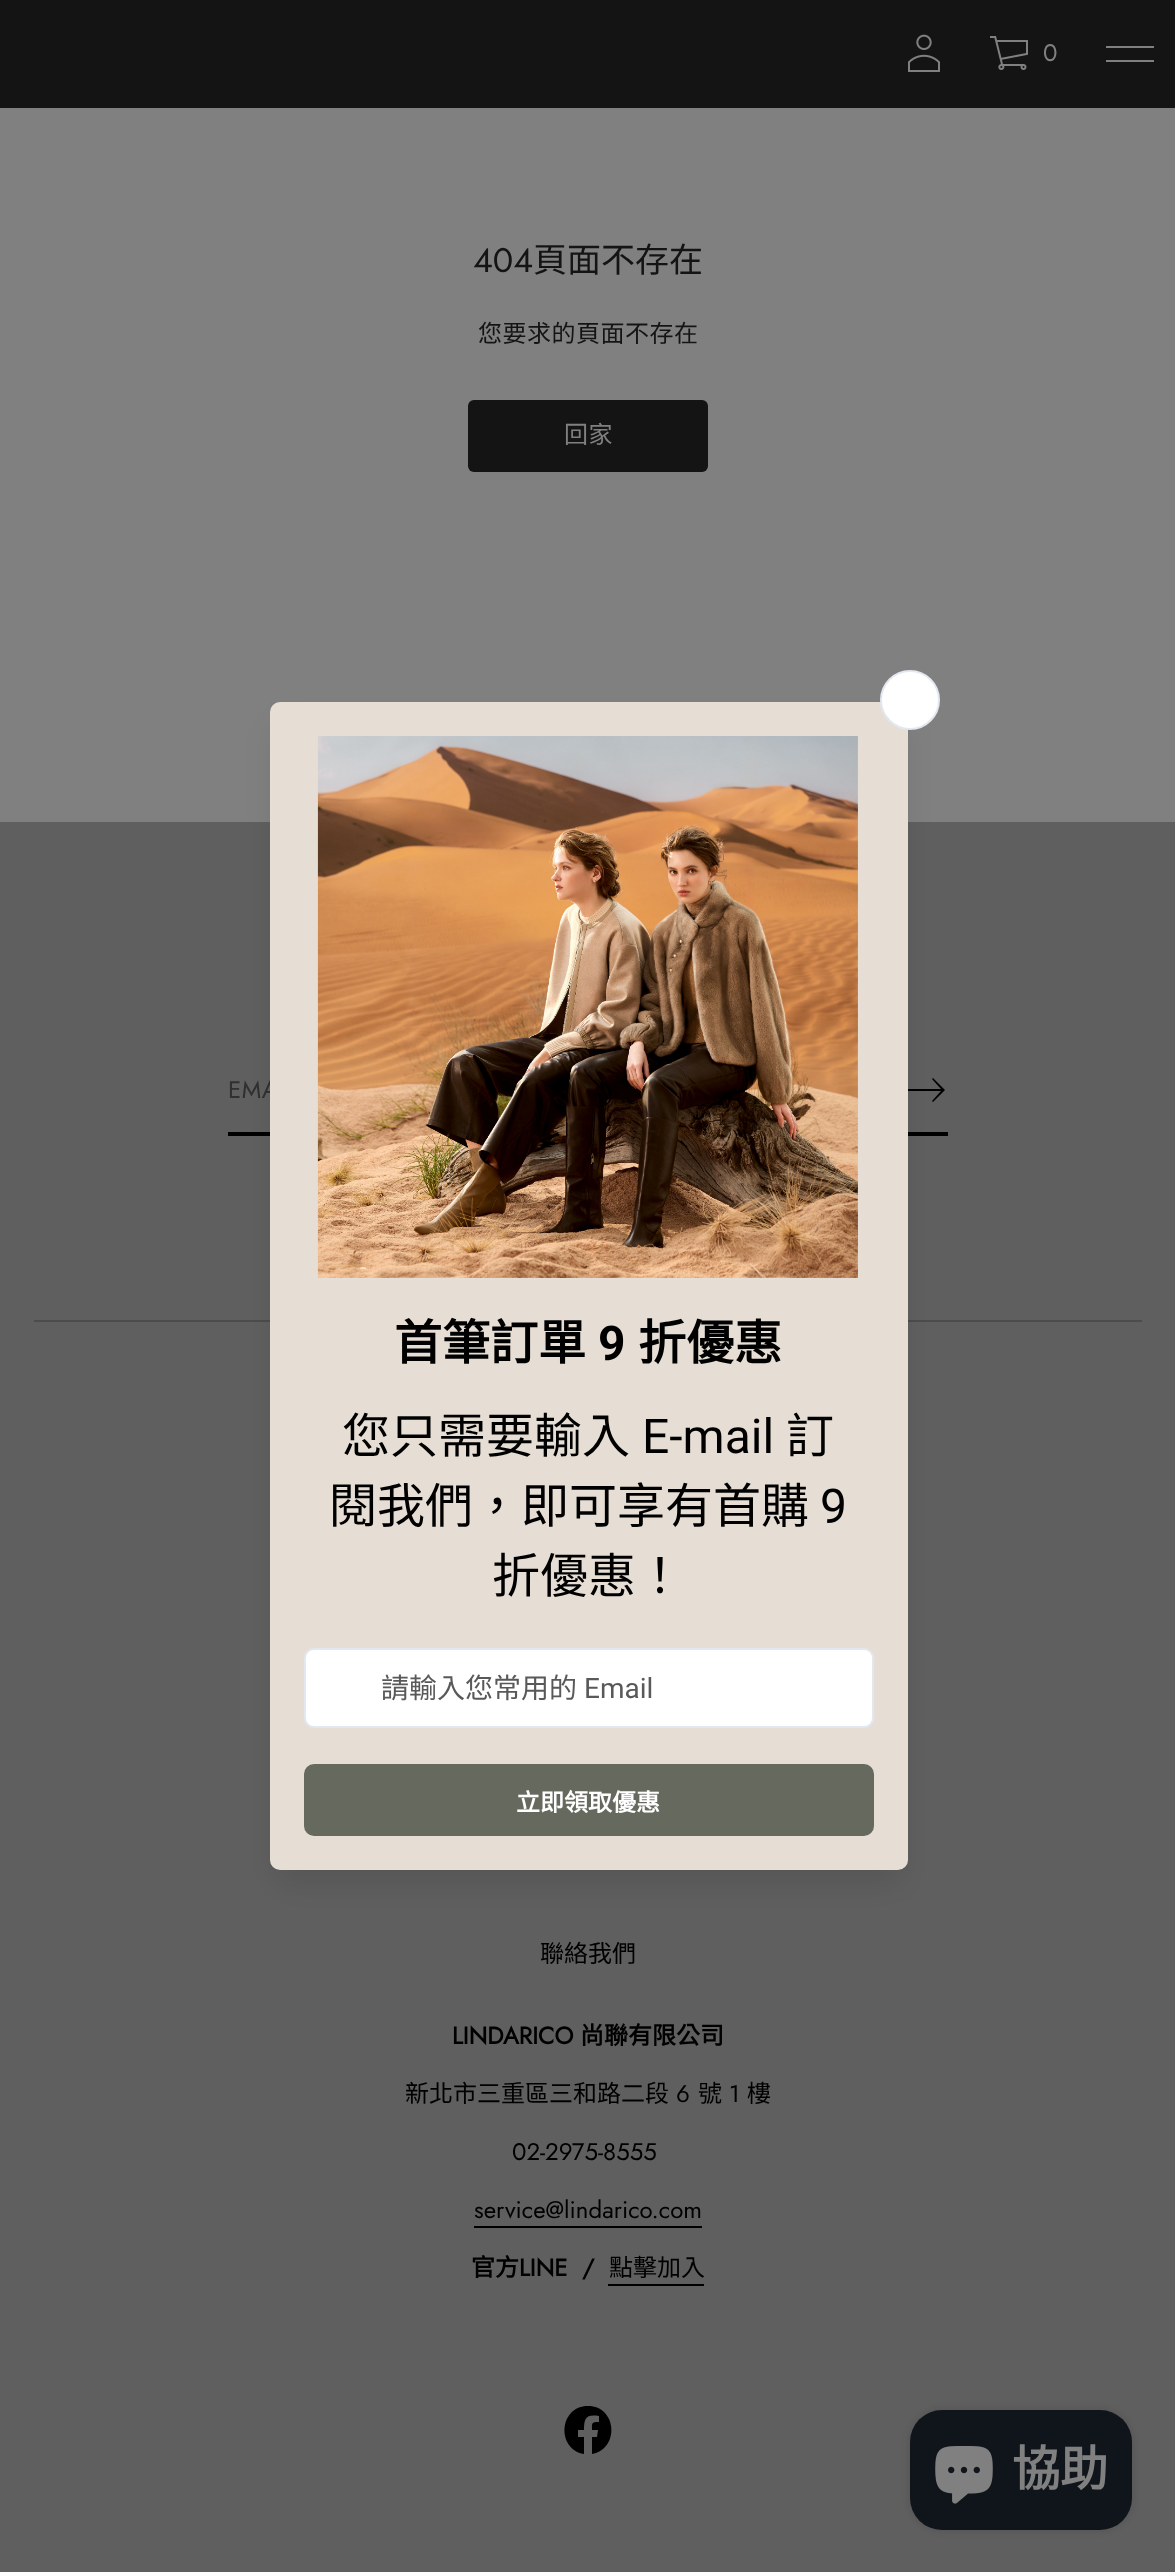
<svg xmlns="http://www.w3.org/2000/svg" width="1175" height="2572" viewBox="0 0 1175 2572">
  <defs>
    <filter id="blur1" x="-50%" y="-200%" width="200%" height="500%"><feGaussianBlur stdDeviation="15"/></filter>
    <clipPath id="clip1"><rect x="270" y="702" width="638" height="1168"/></clipPath>
    <filter id="blur2" x="-50%" y="-200%" width="200%" height="500%"><feGaussianBlur stdDeviation="20"/></filter>
    <filter id="blur3" x="-50%" y="-200%" width="200%" height="500%"><feGaussianBlur stdDeviation="5"/></filter>
  </defs>
  <rect width="100%" height="100%" fill="#808080"/>
  <rect x="0" y="0" width="1175" height="108" fill="#141414"/>
  <image x="908" y="34" width="32" height="38" href="img1.png"/>
  <image x="990" y="36" width="38" height="34" href="img2.png"/>
  <text x="1043" y="61" font-family="Jost" font-size="24" letter-spacing="0.5" fill="#808080">0</text>
  <path d="M1106 46V48H1154V46ZM1106 62H1154V60H1106Z" fill="#808080"/>
  <text x="473" y="272" font-family="Jost" font-size="34" fill="#141414">404</text>
  <text x="533" y="272" font-family="Noto Sans CJK TC" font-size="34" fill="#141414">頁面不存在</text>
  <text x="478" y="342" font-family="Noto Sans CJK TC" font-size="24" letter-spacing="0.5" fill="#141414">您要求的頁面不存在</text>
  <rect x="468" y="400" width="240" height="72" rx="6" fill="#141414"/>
  <text x="564" y="443" font-family="Noto Sans CJK TC" font-size="24" letter-spacing="0.5" fill="#808080">回家</text>
  <rect x="0" y="822" width="1175" height="1750" fill="#5f5f5f"/>
  <rect x="228" y="1132" width="720" height="4" fill="#000000"/>
  <text x="228" y="1098" font-family="Jost" font-size="24" letter-spacing="0.5" fill="#303030">EMA</text>
  <path d="M932 1079L941 1089H902V1091H941L932 1101L933 1102L945 1090L933 1078Z" fill="#000000"/>
  <rect x="34" y="1320" width="1108" height="2" fill="#4c4c4c"/>
  <text x="540" y="1962" font-family="Noto Sans CJK TC" font-size="24" fill="#000000">聯絡我們</text>
  <text x="452" y="2044" font-family="Jost" font-size="24" font-weight="bold" fill="#000000">LINDARICO</text>
  <text x="580" y="2044" font-family="Noto Sans CJK TC" font-size="24" font-weight="bold" fill="#000000">尚聯有限公司</text>
  <text x="405" y="2102" font-family="Noto Sans CJK TC" font-size="24" fill="#000000">新北市三重區三和路二段</text>
  <text x="676" y="2102" font-family="Jost" font-size="24" fill="#000000">6</text>
  <text x="698" y="2102" font-family="Noto Sans CJK TC" font-size="24" fill="#000000">號</text>
  <text x="729" y="2102" font-family="Jost" font-size="24" fill="#000000">1</text>
  <text x="747" y="2102" font-family="Noto Sans CJK TC" font-size="24" fill="#000000">樓</text>
  <text x="512" y="2160" font-family="Jost" font-size="24" fill="#000000">02-2975-8555</text>
  <text x="474" y="2218" font-family="Jost" font-size="24" fill="#000000">service@lindarico.com</text>
  <rect x="474" y="2226" width="228" height="2" fill="#000000"/>
  <text x="471" y="2276" font-family="Noto Sans CJK TC" font-size="24" font-weight="bold" fill="#000000">官方</text>
  <text x="519" y="2276" font-family="Jost" font-size="24" font-weight="bold" fill="#000000" xml:space="preserve">LINE  /</text>
  <text x="609" y="2276" font-family="Noto Sans CJK TC" font-size="24" fill="#000000">點擊加入</text>
  <rect x="608" y="2284" width="96" height="2" fill="#000000"/>
  <path d="M588 2406C559 2406 556 2449 584 2454V2437H578V2430H584C584 2418 586 2414 599 2416V2422C591 2422 592 2423 592 2430H598L597 2437H592V2454C620 2449 617 2406 588 2406Z" fill="#000000" fill-rule="evenodd"/>
  <rect x="276" y="728" width="626" height="1156" rx="4" fill="#000000" fill-opacity="0.1" filter="url(#blur1)"/>
  <g clip-path="url(#clip1)">
    <rect x="276" y="708" width="626" height="1156" rx="4" fill="#000000" fill-opacity="0.12" filter="url(#blur2)"/>
  </g>
  <rect x="270" y="702" width="638" height="1168" rx="10" fill="#e6ded4"/>
  <circle cx="910" cy="700" r="29" fill="#ffffff" stroke="#e2e8f0" stroke-width="2"/>
  <image x="317" y="736" width="541" height="542" href="img3.png"/>
  <text x="394" y="1360" font-family="Noto Sans CJK TC" font-size="48" font-weight="bold" fill="#000000">首筆訂單</text>
  <text x="598" y="1360" font-family="Roboto" font-size="48" font-weight="bold" fill="#000000">9</text>
  <text x="638" y="1360" font-family="Noto Sans CJK TC" font-size="48" font-weight="bold" fill="#000000">折優惠</text>
  <text x="342" y="1453" font-family="Noto Sans CJK TC" font-size="48" fill="#000000">您只需要輸入</text>
  <text x="642" y="1453" font-family="Roboto" font-size="48" fill="#000000">E-mail</text>
  <text x="786" y="1453" font-family="Noto Sans CJK TC" font-size="48" fill="#000000">訂</text>
  <text x="329" y="1523" font-family="Noto Sans CJK TC" font-size="48" fill="#000000">閱我們，即可享有首購</text>
  <text x="820" y="1523" font-family="Roboto" font-size="48" fill="#000000">9</text>
  <text x="492" y="1593" font-family="Noto Sans CJK TC" font-size="48" fill="#000000">折優惠！</text>
  <rect x="305" y="1649" width="568" height="78" rx="9" fill="#ffffff" stroke="#e2e8f0" stroke-width="2"/>
  <text x="381" y="1698" font-family="Noto Sans CJK TC" font-size="28" fill="#595959">請輸入您常用的</text>
  <text x="584" y="1698" font-family="Roboto" font-size="28" fill="#595959">Email</text>
  <rect x="304" y="1764" width="570" height="72" rx="10" fill="#666a5e"/>
  <text x="516" y="1811" font-family="Noto Sans CJK TC" font-size="24" font-weight="bold" fill="#ffffff">立即領取優惠</text>
  <rect x="910" y="2410" width="222" height="120" rx="32" fill="#000000" fill-opacity="0.15" filter="url(#blur3)"/>
  <rect x="910" y="2410" width="222" height="120" rx="32" fill="#10151b"/>
  <image x="935" y="2446" width="58" height="58" href="img4.png"/>
  <text x="1012" y="2486" font-family="Noto Sans CJK TC" font-size="48" font-weight="bold" fill="#808080">協助</text>
</svg>
